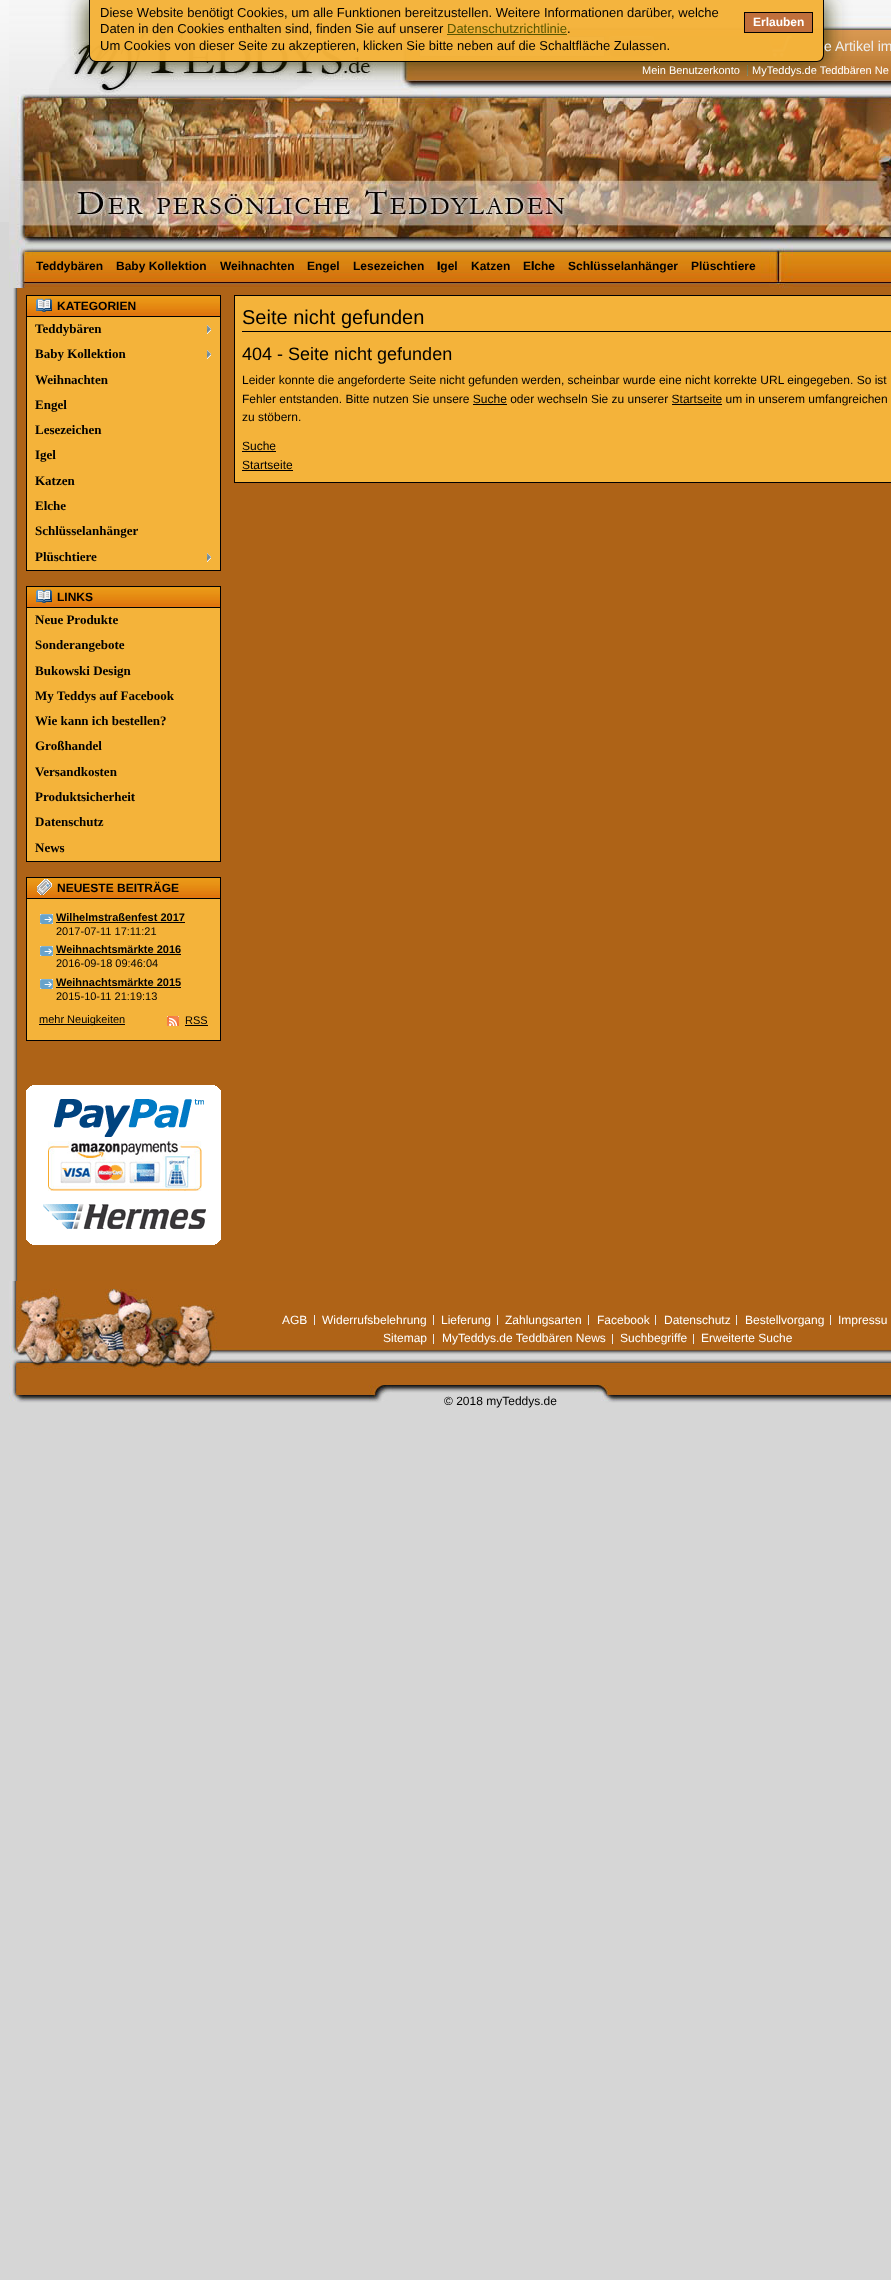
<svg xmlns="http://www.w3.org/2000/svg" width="891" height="2280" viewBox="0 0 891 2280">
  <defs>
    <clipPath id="clip1"><path d="M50 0H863V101H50ZM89 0H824V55C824 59 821 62 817 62H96C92 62 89 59 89 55Z" clip-rule="evenodd"/></clipPath>
    <filter id="blur1" x="-50%" y="-200%" width="200%" height="500%"><feGaussianBlur stdDeviation="12.5"/></filter>
  </defs>
  <rect width="100%" height="100%" fill="#d6d6d6"/>
  <image x="9" y="0" width="882" height="288" href="img2.png"/>
  <rect x="419.5" y="36.5" width="185" height="20" fill="#ffffff" stroke="#5c7989"/>
  <image x="609" y="36" width="42" height="21" href="img3.png"/>
  <image x="651" y="36" width="3" height="21" href="img4.png"/>
  <image x="769" y="36" width="23" height="21" href="img5.png"/>
  <image x="747" y="65" width="1" height="11" href="img6.png"/>
  <g clip-path="url(#clip1)">
    <rect x="89" y="0" width="735" height="62" rx="7" fill="#333300" fill-opacity="0.98" filter="url(#blur1)"/>
  </g>
  <path d="M90 0H823V55C823 58.5 820.5 61 817 61H96C92.5 61 90 58.5 90 55Z" fill="#f4b33a" fill-opacity="0.98"/>
  <path d="M89 0H824V55C824 59 821 62 817 62H96C92 62 89 59 89 55ZM90 0H823V55C823 58 820 61 817 61H96C93 61 90 58 90 55Z" fill="#000000" fill-opacity="0.98" fill-rule="evenodd"/>
  <text x="100" y="17" font-family="Liberation Sans" font-size="13" fill="#000000">Diese Website benötigt Cookies, um alle Funktionen bereitzustellen. Weitere Informationen darüber, welche</text>
  <text x="100" y="33" font-family="Liberation Sans" font-size="13" fill="#000000">Daten in den Cookies enthalten sind, finden Sie auf unserer</text>
  <text x="447" y="33" font-family="Liberation Sans" font-size="13" fill="#585701">Datenschutzrichtlinie</text>
  <text x="567" y="33" font-family="Liberation Sans" font-size="13" fill="#000000">.</text>
  <rect x="447" y="34" width="120" height="1" fill="#585602"/>
  <text x="100" y="50" font-family="Liberation Sans" font-size="13" fill="#000000">Um Cookies von dieser Seite zu akzeptieren, klicken Sie bitte neben auf die Schaltfläche Zulassen.</text>
  <rect x="744.5" y="12.5" width="68" height="20" fill="#bf6d3b" fill-opacity="0.98" stroke="#040201"/>
  <text x="753" y="26" font-family="Liberation Sans" font-size="12" font-weight="bold" fill="#ffffff">Erlauben</text>
  <image x="0" y="0" width="9" height="222" href="img1.png"/>
  <text x="824" y="51" font-family="Liberation Sans" font-size="14" fill="#eeeeee">e Artikel im</text>
  <text x="642" y="74" font-family="Liberation Sans" font-size="11" fill="#ffffff">Mein Benutzerkonto</text>
  <text x="752" y="74" font-family="Liberation Sans" font-size="11" fill="#ffffff">MyTeddys.de Teddbären Ne</text>
  <text x="36" y="270" font-family="Liberation Sans" font-size="12" font-weight="bold" fill="#000000">Teddybären</text>
  <text x="116" y="270" font-family="Liberation Sans" font-size="12" font-weight="bold" fill="#000000">Baby Kollektion</text>
  <text x="220" y="270" font-family="Liberation Sans" font-size="12" font-weight="bold" fill="#000000">Weihnachten</text>
  <text x="307" y="270" font-family="Liberation Sans" font-size="12" font-weight="bold" fill="#000000">Engel</text>
  <text x="353" y="270" font-family="Liberation Sans" font-size="12" font-weight="bold" fill="#000000">Lesezeichen</text>
  <text x="437" y="270" font-family="Liberation Sans" font-size="12" font-weight="bold" fill="#000000">Igel</text>
  <text x="471" y="270" font-family="Liberation Sans" font-size="12" font-weight="bold" fill="#000000">Katzen</text>
  <text x="523" y="270" font-family="Liberation Sans" font-size="12" font-weight="bold" fill="#000000">Elche</text>
  <text x="568" y="270" font-family="Liberation Sans" font-size="12" font-weight="bold" fill="#000000">Schlüsselanhänger</text>
  <text x="691" y="270" font-family="Liberation Sans" font-size="12" font-weight="bold" fill="#000000">Plüschtiere</text>
  <text x="437" y="270" font-family="Liberation Sans" font-size="12" font-weight="bold" fill="#000000">I</text>
  <text x="531" y="270" font-family="Liberation Sans" font-size="12" font-weight="bold" fill="#000000">l</text>
  <text x="590" y="270" font-family="Liberation Sans" font-size="12" font-weight="bold" fill="#000000">l</text>
  <image x="13" y="288" width="878" height="993" href="img7.png"/>
  <rect x="26.5" y="295.5" width="194" height="275" fill="none" stroke="#000000"/>
  <rect x="27" y="313" width="193" height="3" fill="#e1760e"/>
  <image x="27" y="296" width="193" height="17" href="img8.png"/>
  <rect x="27" y="316" width="193" height="1" fill="#000000"/>
  <image x="36" y="298" width="16" height="14" href="img9.png"/>
  <text x="57" y="310" font-family="Liberation Sans" font-size="12" font-weight="bold" fill="#000000">KATEGORIEN</text>
  <rect x="27" y="317" width="193" height="253" fill="#f4b33a"/>
  <image x="207" y="325" width="4" height="9" href="img10.png"/>
  <text x="35" y="333" font-family="Liberation Serif" font-size="13" font-weight="bold" fill="#000000">Teddybären</text>
  <image x="207" y="350" width="4" height="9" href="img10.png"/>
  <text x="35" y="358" font-family="Liberation Serif" font-size="13" font-weight="bold" fill="#000000">Baby Kollektion</text>
  <text x="35" y="384" font-family="Liberation Serif" font-size="13" font-weight="bold" fill="#000000">Weihnachten</text>
  <text x="35" y="409" font-family="Liberation Serif" font-size="13" font-weight="bold" fill="#000000">Engel</text>
  <text x="35" y="434" font-family="Liberation Serif" font-size="13" font-weight="bold" fill="#000000">Lesezeichen</text>
  <text x="35" y="459" font-family="Liberation Serif" font-size="13" font-weight="bold" fill="#000000">Igel</text>
  <text x="35" y="485" font-family="Liberation Serif" font-size="13" font-weight="bold" fill="#000000">Katzen</text>
  <text x="35" y="510" font-family="Liberation Serif" font-size="13" font-weight="bold" fill="#000000">Elche</text>
  <text x="35" y="535" font-family="Liberation Serif" font-size="13" font-weight="bold" fill="#000000">Schlüsselanhänger</text>
  <image x="207" y="553" width="4" height="9" href="img10.png"/>
  <text x="35" y="561" font-family="Liberation Serif" font-size="13" font-weight="bold" fill="#000000">Plüschtiere</text>
  <rect x="26.5" y="586.5" width="194" height="275" fill="none" stroke="#000000"/>
  <rect x="27" y="604" width="193" height="3" fill="#e1760e"/>
  <image x="27" y="587" width="193" height="17" href="img8.png"/>
  <rect x="27" y="607" width="193" height="1" fill="#000000"/>
  <image x="36" y="589" width="16" height="14" href="img9.png"/>
  <text x="57" y="601" font-family="Liberation Sans" font-size="12" font-weight="bold" fill="#000000">LINKS</text>
  <rect x="27" y="608" width="193" height="253" fill="#f4b33a"/>
  <text x="35" y="624" font-family="Liberation Serif" font-size="13" font-weight="bold" fill="#000000">Neue Produkte</text>
  <text x="35" y="649" font-family="Liberation Serif" font-size="13" font-weight="bold" fill="#000000">Sonderangebote</text>
  <text x="35" y="675" font-family="Liberation Serif" font-size="13" font-weight="bold" fill="#000000">Bukowski Design</text>
  <text x="35" y="700" font-family="Liberation Serif" font-size="13" font-weight="bold" fill="#000000">My Teddys auf Facebook</text>
  <text x="35" y="725" font-family="Liberation Serif" font-size="13" font-weight="bold" fill="#000000">Wie kann ich bestellen?</text>
  <text x="35" y="750" font-family="Liberation Serif" font-size="13" font-weight="bold" fill="#000000">Großhandel</text>
  <text x="35" y="776" font-family="Liberation Serif" font-size="13" font-weight="bold" fill="#000000">Versandkosten</text>
  <text x="35" y="801" font-family="Liberation Serif" font-size="13" font-weight="bold" fill="#000000">Produktsicherheit</text>
  <text x="35" y="826" font-family="Liberation Serif" font-size="13" font-weight="bold" fill="#000000">Datenschutz</text>
  <text x="35" y="852" font-family="Liberation Serif" font-size="13" font-weight="bold" fill="#000000">News</text>
  <rect x="26.5" y="877.5" width="194" height="163" fill="none" stroke="#000000"/>
  <rect x="27" y="895" width="193" height="3" fill="#e1760e"/>
  <image x="27" y="878" width="193" height="17" href="img8.png"/>
  <rect x="27" y="898" width="193" height="1" fill="#000000"/>
  <image x="37" y="879" width="15" height="16" href="img11.png"/>
  <text x="57" y="892" font-family="Liberation Sans" font-size="12" font-weight="bold" fill="#000000">NEUESTE BEITRÄGE</text>
  <rect x="27" y="899" width="193" height="141" fill="#f4b33a"/>
  <image x="40" y="914" width="13" height="10" href="img12.png"/>
  <text x="56" y="921" font-family="Liberation Sans" font-size="11" font-weight="bold" fill="#000000">Wilhelmstraßenfest 2017</text>
  <rect x="56" y="922" width="129" height="1" fill="#000000"/>
  <text x="56" y="935" font-family="Liberation Sans" font-size="11" fill="#000000">2017-07-11 17:11:21</text>
  <image x="40" y="946" width="13" height="10" href="img12.png"/>
  <text x="56" y="953" font-family="Liberation Sans" font-size="11" font-weight="bold" fill="#000000">Weihnachtsmärkte 2016</text>
  <rect x="56" y="954" width="125" height="1" fill="#000000"/>
  <text x="56" y="967" font-family="Liberation Sans" font-size="11" fill="#000000">2016-09-18 09:46:04</text>
  <image x="40" y="979" width="13" height="10" href="img12.png"/>
  <text x="56" y="986" font-family="Liberation Sans" font-size="11" font-weight="bold" fill="#000000">Weihnachtsmärkte 2015</text>
  <rect x="56" y="987" width="125" height="1" fill="#000000"/>
  <text x="56" y="1000" font-family="Liberation Sans" font-size="11" fill="#000000">2015-10-11 21:19:13</text>
  <rect x="39" y="1024" width="86" height="1" fill="#000000"/>
  <text x="39" y="1023" font-family="Liberation Sans" font-size="11" fill="#000000">mehr Neuigkeiten</text>
  <image x="167" y="1016" width="12" height="10" href="img13.png"/>
  <text x="185" y="1024" font-family="Liberation Sans" font-size="11" fill="#000000">RSS</text>
  <rect x="185" y="1025" width="23" height="1" fill="#000000"/>
  <image x="26" y="1085" width="195" height="160" href="img14.png"/>
  <rect x="234.5" y="295.5" width="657" height="187" fill="#f4b33a" stroke="#000000"/>
  <rect x="242" y="331" width="649" height="1" fill="#000000"/>
  <text x="242" y="324" font-family="Liberation Sans" font-size="20" fill="#000000">Seite nicht gefunden</text>
  <text x="242" y="360" font-family="Liberation Sans" font-size="18" fill="#000000">404 - Seite nicht gefunden</text>
  <text x="242" y="384" font-family="Liberation Sans" font-size="12" fill="#000000">Leider konnte die angeforderte Seite nicht gefunden werden, scheinbar wurde eine nicht korrekte URL eingegeben. So ist</text>
  <text x="242" y="403" font-family="Liberation Sans" font-size="12" fill="#000000">Fehler entstanden. Bitte nutzen Sie unsere Suche oder wechseln Sie zu unserer Startseite um in unserem umfangreichen</text>
  <rect x="473" y="404" width="34" height="1" fill="#000000"/>
  <rect x="672" y="404" width="50" height="1" fill="#000000"/>
  <text x="242" y="421" font-family="Liberation Sans" font-size="12" fill="#000000">zu stöbern.</text>
  <text x="242" y="450" font-family="Liberation Sans" font-size="12" fill="#000000">Suche</text>
  <rect x="242" y="451" width="34" height="1" fill="#000000"/>
  <text x="242" y="469" font-family="Liberation Sans" font-size="12" fill="#000000">Startseite</text>
  <rect x="242" y="470" width="51" height="1" fill="#000000"/>
  <image x="9" y="1281" width="882" height="122" href="img15.png"/>
  <text x="282" y="1324" font-family="Liberation Sans" font-size="12" fill="#ffffff">AGB</text>
  <rect x="314" y="1315" width="1" height="10" fill="#e9e9e9"/>
  <text x="322" y="1324" font-family="Liberation Sans" font-size="12" fill="#ffffff">Widerrufsbelehrung</text>
  <rect x="433" y="1315" width="1" height="10" fill="#e9e9e9"/>
  <text x="441" y="1324" font-family="Liberation Sans" font-size="12" fill="#ffffff">Lieferung</text>
  <rect x="497" y="1315" width="1" height="10" fill="#e9e9e9"/>
  <text x="505" y="1324" font-family="Liberation Sans" font-size="12" fill="#ffffff">Zahlungsarten</text>
  <rect x="588" y="1315" width="1" height="10" fill="#e9e9e9"/>
  <text x="597" y="1324" font-family="Liberation Sans" font-size="12" fill="#ffffff">Facebook</text>
  <rect x="655" y="1315" width="1" height="10" fill="#e9e9e9"/>
  <text x="664" y="1324" font-family="Liberation Sans" font-size="12" fill="#ffffff">Datenschutz</text>
  <rect x="736" y="1315" width="1" height="10" fill="#e9e9e9"/>
  <text x="745" y="1324" font-family="Liberation Sans" font-size="12" fill="#ffffff">Bestellvorgang</text>
  <rect x="830" y="1315" width="1" height="10" fill="#e9e9e9"/>
  <text x="838" y="1324" font-family="Liberation Sans" font-size="12" fill="#ffffff">Impressu</text>
  <text x="383" y="1342" font-family="Liberation Sans" font-size="12" fill="#ffffff">Sitemap</text>
  <rect x="433" y="1334" width="1" height="10" fill="#e9e9e9"/>
  <text x="442" y="1342" font-family="Liberation Sans" font-size="12" fill="#ffffff">MyTeddys.de Teddbären News</text>
  <rect x="612" y="1334" width="1" height="10" fill="#e9e9e9"/>
  <text x="620" y="1342" font-family="Liberation Sans" font-size="12" fill="#ffffff">Suchbegriffe</text>
  <rect x="693" y="1334" width="1" height="10" fill="#e9e9e9"/>
  <text x="701" y="1342" font-family="Liberation Sans" font-size="12" fill="#ffffff">Erweiterte Suche</text>
  <text x="444" y="1405" font-family="Liberation Sans" font-size="12" fill="#000000">© 2018 myTeddys.de</text>
</svg>
